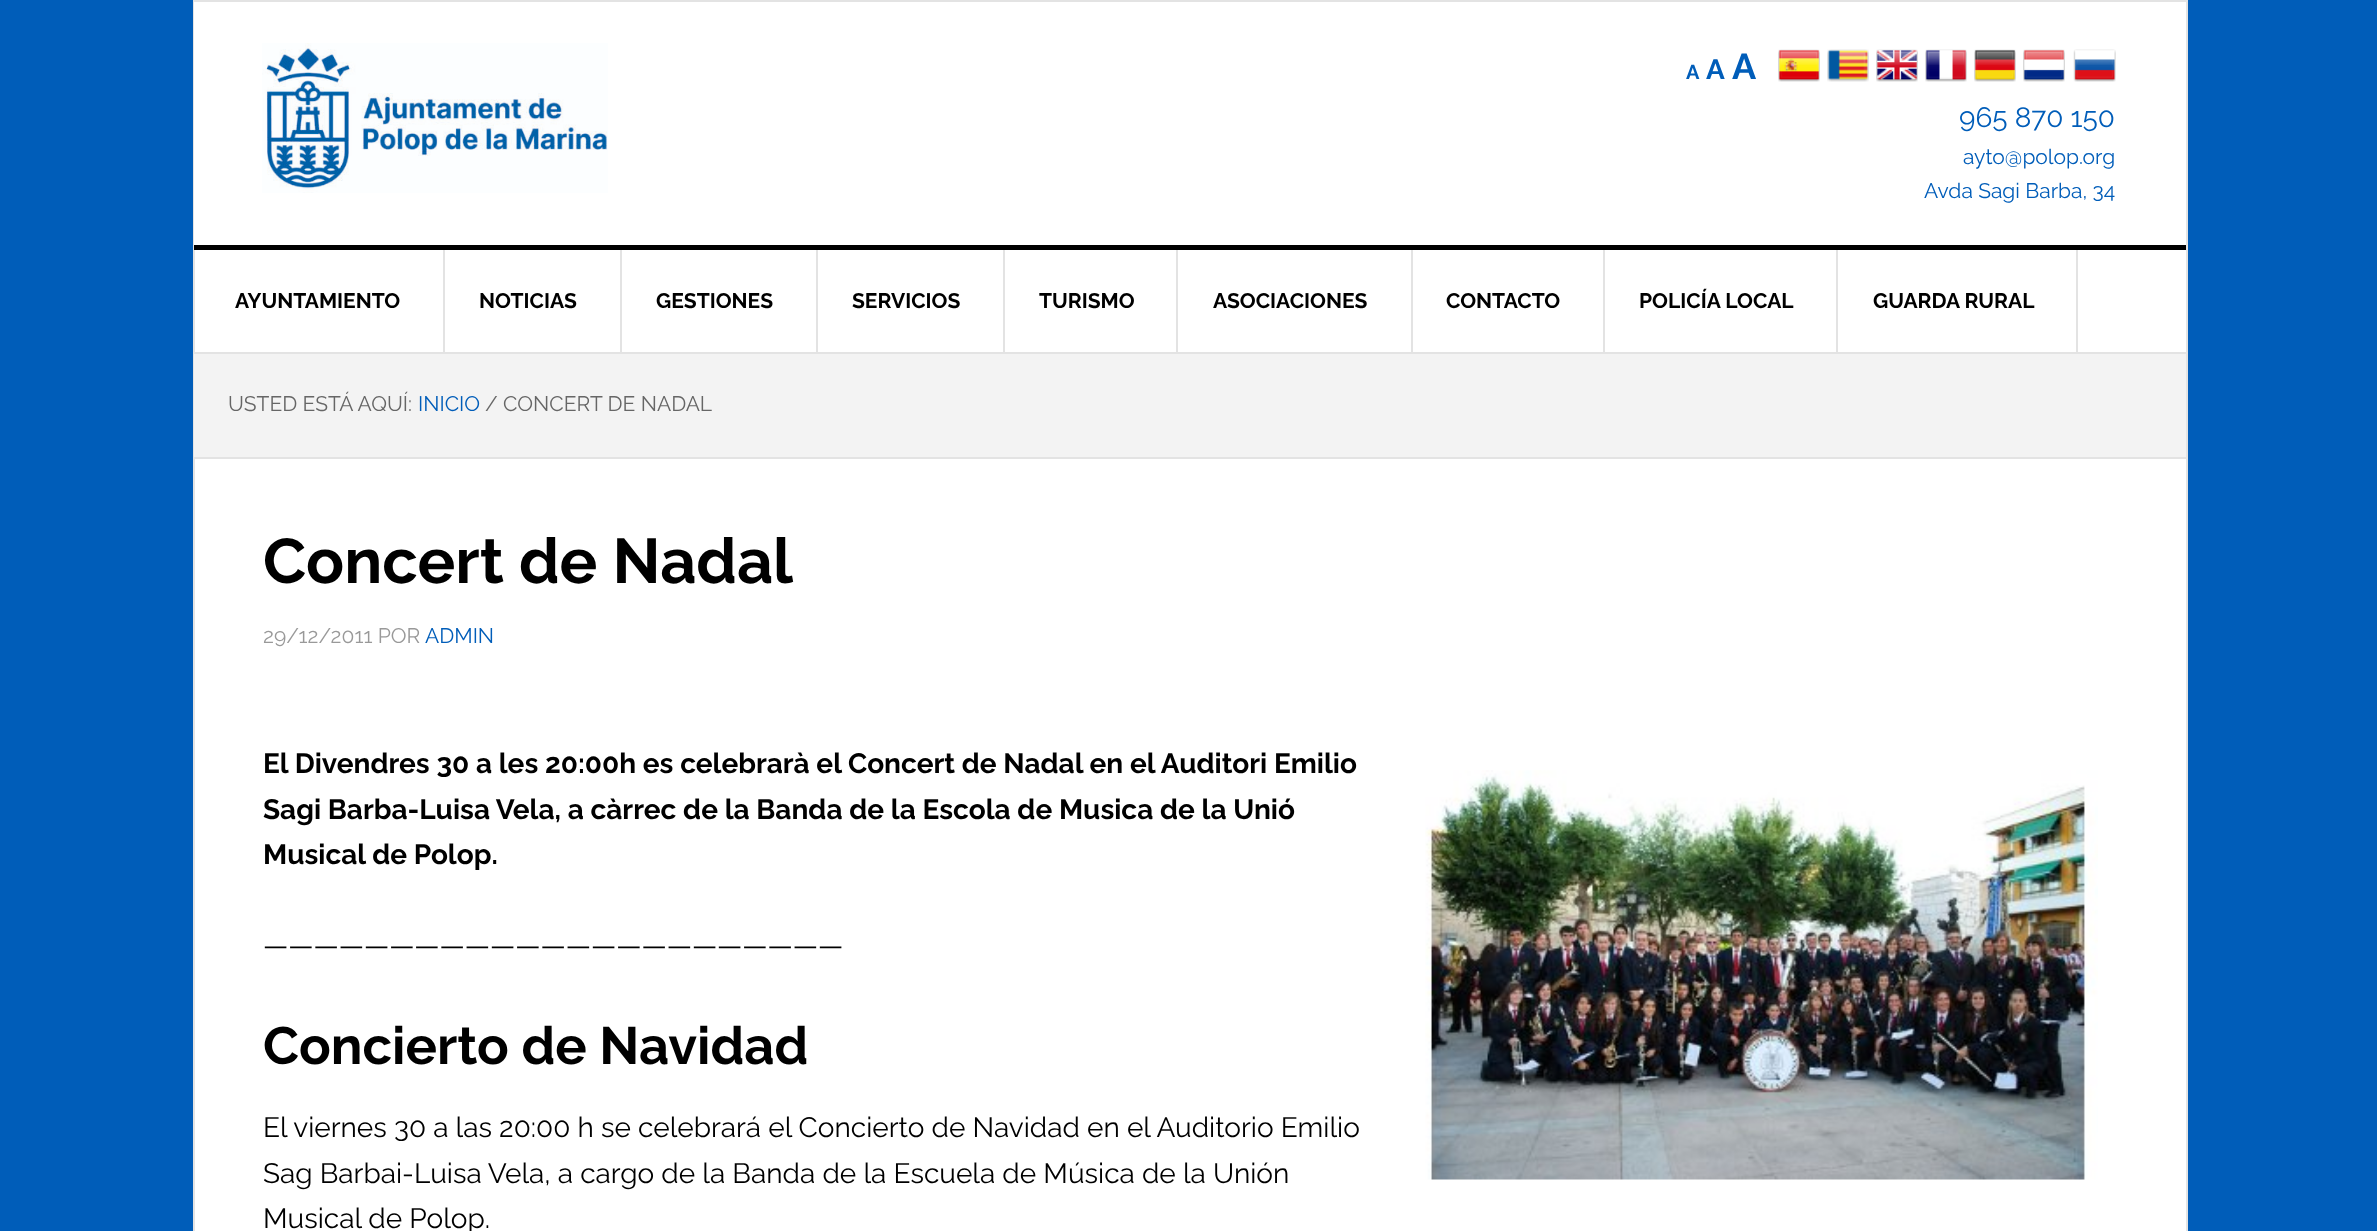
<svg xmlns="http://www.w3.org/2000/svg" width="2377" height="1231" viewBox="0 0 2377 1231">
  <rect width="100%" height="100%" fill="#005db9"/>
  <rect x="195" y="250" width="1991" height="981" fill="#ffffff"/>
  <rect x="194" y="1" width="1993" height="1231" fill="none" stroke="#e3e3e3" stroke-width="2"/>
  <rect x="194" y="2" width="1992" height="243" fill="#ffffff"/>
  <rect x="194" y="245" width="1992" height="5" fill="#000000"/>
  <image x="262" y="43" width="346" height="150" href="img1.png"/>
  <text x="1686" y="79" font-family="Raleway" font-size="20" font-weight="bold" fill="#005db9">A</text>
  <text x="1706" y="79" font-family="Raleway" font-size="28" font-weight="bold" fill="#005db9">A</text>
  <text x="1732" y="79" font-family="Raleway" font-size="36" font-weight="bold" fill="#005db9">A</text>
  <image x="1778" y="49" width="42" height="33" href="img2.png"/>
  <image x="1827" y="49" width="42" height="33" href="img3.png"/>
  <image x="1876" y="49" width="42" height="33" href="img4.png"/>
  <image x="1925" y="49" width="42" height="33" href="img5.png"/>
  <image x="1974" y="49" width="42" height="33" href="img6.png"/>
  <image x="2023" y="49" width="42" height="33" href="img7.png"/>
  <image x="2073" y="49" width="43" height="33" href="img8.png"/>
  <text x="1959" y="127" font-family="Raleway" font-size="28" fill="#005db9">965 870 150</text>
  <text x="1963" y="164" font-family="Raleway" font-size="21" fill="#005db9">ayto@polop.org</text>
  <text x="1924" y="198" font-family="Raleway" font-size="21" fill="#005db9">Avda Sagi Barba, 34</text>
  <rect x="194" y="352" width="1992" height="2" fill="#e3e3e3"/>
  <rect x="443" y="250" width="2" height="102" fill="#e3e3e3"/>
  <text x="235" y="308" font-family="Raleway" font-size="21" font-weight="bold" fill="#000000">AYUNTAMIENTO</text>
  <rect x="620" y="250" width="2" height="102" fill="#e3e3e3"/>
  <text x="479" y="308" font-family="Raleway" font-size="21" font-weight="bold" fill="#000000">NOTICIAS</text>
  <rect x="816" y="250" width="2" height="102" fill="#e3e3e3"/>
  <text x="656" y="308" font-family="Raleway" font-size="21" font-weight="bold" fill="#000000">GESTIONES</text>
  <rect x="1003" y="250" width="2" height="102" fill="#e3e3e3"/>
  <text x="852" y="308" font-family="Raleway" font-size="21" font-weight="bold" fill="#000000">SERVICIOS</text>
  <rect x="1176" y="250" width="2" height="102" fill="#e3e3e3"/>
  <text x="1039" y="308" font-family="Raleway" font-size="21" font-weight="bold" fill="#000000">TURISMO</text>
  <rect x="1411" y="250" width="2" height="102" fill="#e3e3e3"/>
  <text x="1213" y="308" font-family="Raleway" font-size="21" font-weight="bold" fill="#000000">ASOCIACIONES</text>
  <rect x="1603" y="250" width="2" height="102" fill="#e3e3e3"/>
  <text x="1446" y="308" font-family="Raleway" font-size="21" font-weight="bold" fill="#000000">CONTACTO</text>
  <rect x="1836" y="250" width="2" height="102" fill="#e3e3e3"/>
  <text x="1639" y="308" font-family="Raleway" font-size="21" font-weight="bold" fill="#000000">POLICÍA LOCAL</text>
  <rect x="2076" y="250" width="2" height="102" fill="#e3e3e3"/>
  <text x="1873" y="308" font-family="Raleway" font-size="21" font-weight="bold" fill="#000000">GUARDA RURAL</text>
  <rect x="194" y="354" width="1992" height="103" fill="#f3f3f3"/>
  <rect x="194" y="457" width="1992" height="2" fill="#e3e3e3"/>
  <text x="228" y="411" font-family="Raleway" font-size="21" fill="#666666">USTED ESTÁ AQUÍ:</text>
  <text x="418" y="411" font-family="Raleway" font-size="21" fill="#005db9">INICIO</text>
  <text x="485" y="411" font-family="Raleway" font-size="21" fill="#666666">/ CONCERT DE NADAL</text>
  <text x="263" y="583" font-family="Raleway" font-size="63" font-weight="bold" fill="#000000">Concert de Nadal</text>
  <text x="263" y="643" font-family="Raleway" font-size="21" fill="#999999">29/12/2011 POR</text>
  <text x="425" y="643" font-family="Raleway" font-size="21" fill="#005db9">ADMIN</text>
  <text x="263" y="773" font-family="Raleway" font-size="28" font-weight="bold" fill="#000000">El Divendres 30 a les 20:00h es celebrarà el Concert de Nadal en el Auditori Emilio</text>
  <text x="263" y="819" font-family="Raleway" font-size="28" font-weight="bold" fill="#000000">Sagi Barba-Luisa Vela, a càrrec de la Banda de la Escola de Musica de la Unió</text>
  <image x="1425" y="770" width="673" height="410" href="img9.png"/>
  <text x="263" y="864" font-family="Raleway" font-size="28" font-weight="bold" fill="#000000">Musical de Polop.</text>
  <text x="263" y="955" font-family="Raleway" font-size="28" fill="#000000">———————————————————————</text>
  <text x="263" y="1064" font-family="Raleway" font-size="52.5" font-weight="bold" fill="#000000">Concierto de Navidad</text>
  <text x="263" y="1137" font-family="Raleway" font-size="28" fill="#000000">El viernes 30 a las 20:00 h se celebrará el Concierto de Navidad en el Auditorio Emilio</text>
  <text x="263" y="1183" font-family="Raleway" font-size="28" fill="#000000">Sag Barbai-Luisa Vela, a cargo de la Banda de la Escuela de Música de la Unión</text>
  <text x="263" y="1228" font-family="Raleway" font-size="28" fill="#000000">Musical de Polop.</text>
</svg>
